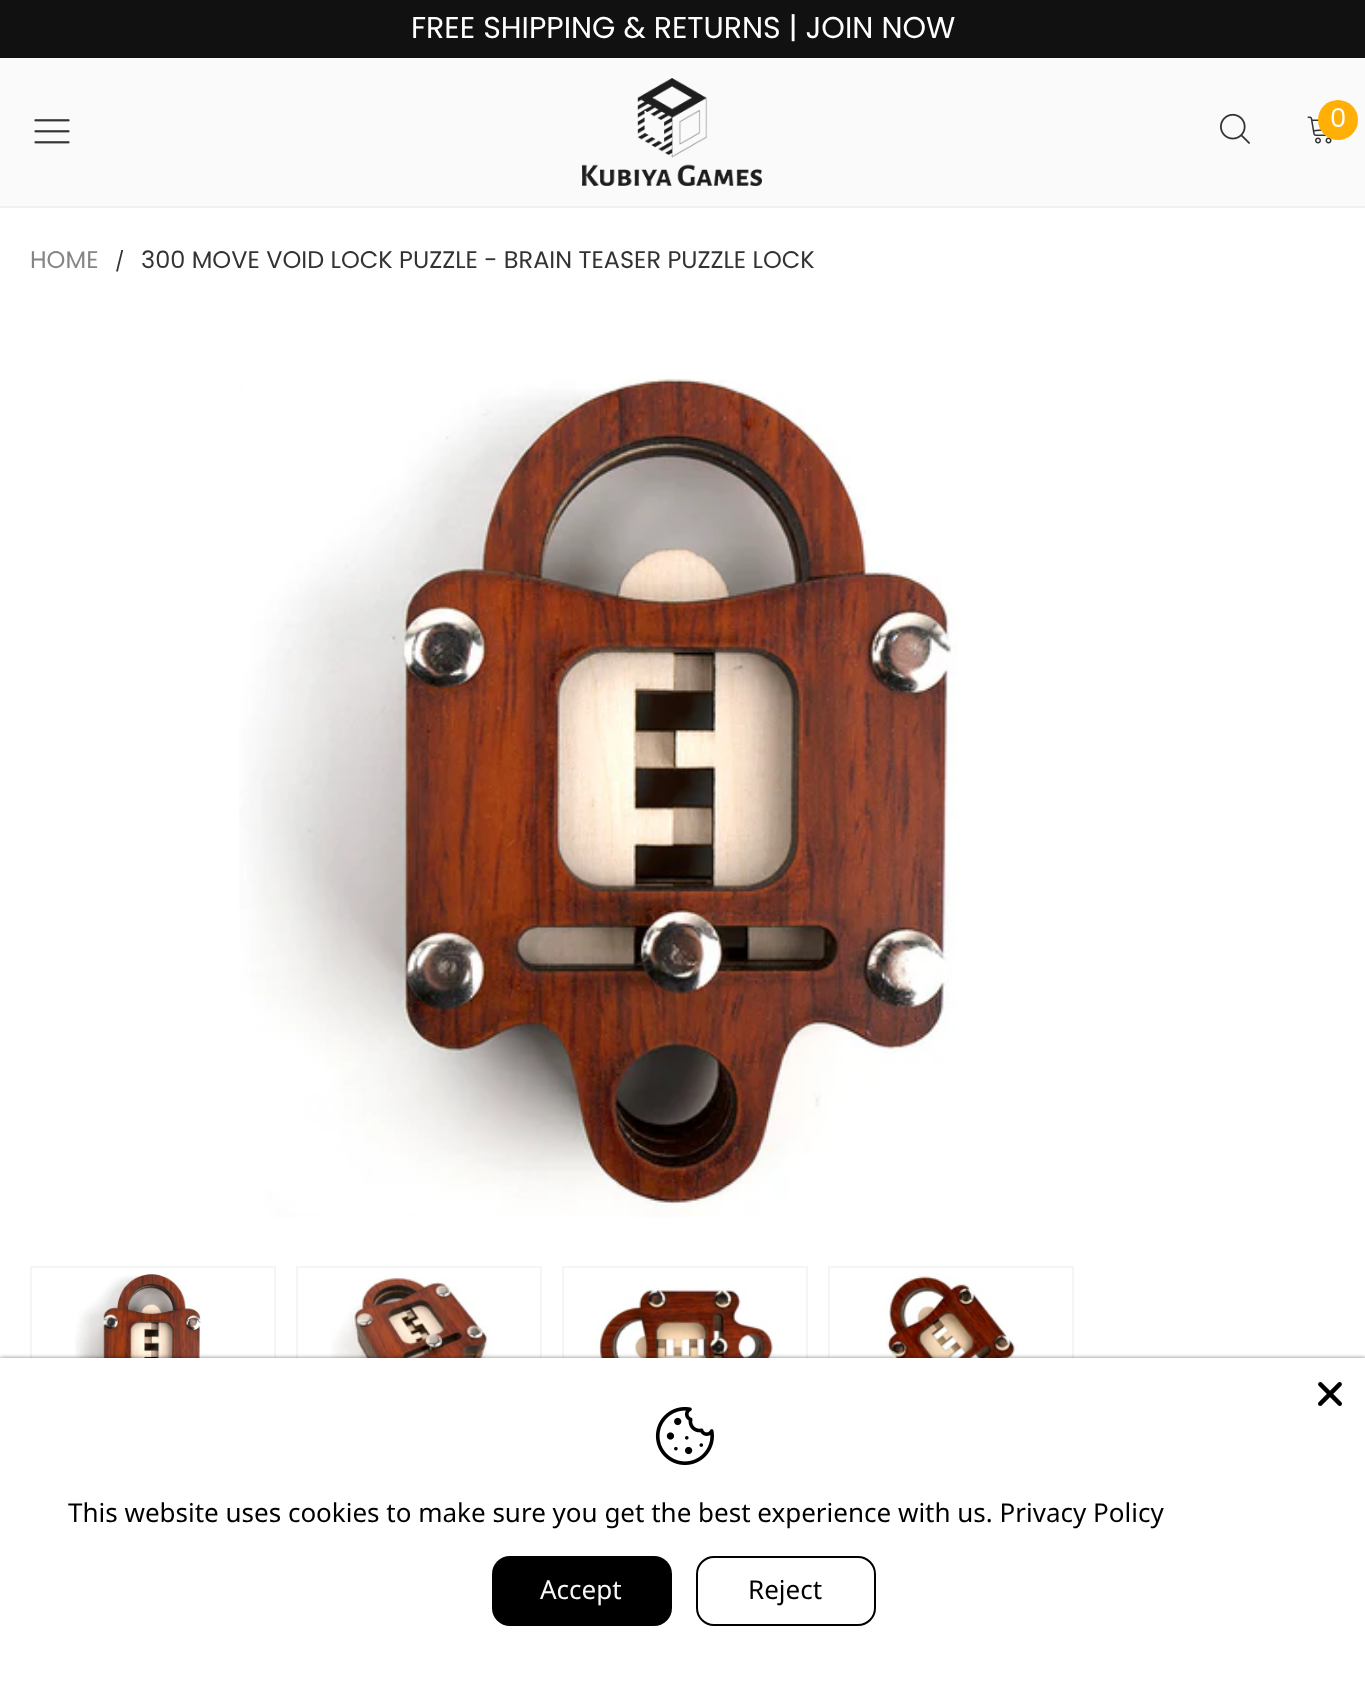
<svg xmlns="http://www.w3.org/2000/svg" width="1365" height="1692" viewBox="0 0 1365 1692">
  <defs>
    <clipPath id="clip1"><rect x="30" y="250" width="784" height="22"/></clipPath>
    <filter id="blur1" x="-50%" y="-200%" width="200%" height="500%"><feGaussianBlur stdDeviation="2"/></filter>
  </defs>
  <rect width="100%" height="100%" fill="#ffffff"/>
  <rect x="0" y="0" width="1365" height="58" fill="#111111"/>
  <text x="411" y="38" font-family="Poppins" font-size="30" fill="#ffffff">FREE SHIPPING &amp; RETURNS | JOIN NOW</text>
  <rect x="0" y="58" width="1365" height="148" fill="#fafafa"/>
  <rect x="0" y="206" width="1365" height="2" fill="#f0f0f0"/>
  <image x="582" y="78" width="180" height="108" href="img1.png"/>
  <image x="1220" y="113" width="30" height="31" href="img2.png"/>
  <image x="1307" y="116" width="25" height="28" href="img3.png"/>
  <circle cx="1338" cy="120" r="20" fill="#ffaf06"/>
  <text x="1330" y="127" font-family="Poppins" font-size="26" fill="#ffffff">0</text>
  <image x="34" y="119" width="36" height="25" href="img4.png"/>
  <text x="30" y="268" font-family="Poppins" font-size="24" fill="#858585">HOME</text>
  <g clip-path="url(#clip1)">
    <text x="115" y="268" font-family="Poppins" font-size="20" fill="#333333">/</text>
  </g>
  <text x="141" y="268" font-family="Poppins" font-size="24" fill="#333333">300 MOVE VOID LOCK PUZZLE - BRAIN TEASER PUZZLE LOCK</text>
  <image x="239" y="378" width="718" height="840" href="img5.png"/>
  <rect x="31" y="1267" width="244" height="162" fill="none" stroke="#f5f5f5" stroke-width="2"/>
  <image x="75" y="1274" width="126" height="84" href="img6.png"/>
  <rect x="297" y="1267" width="244" height="162" fill="none" stroke="#f5f5f5" stroke-width="2"/>
  <image x="331" y="1277" width="161" height="81" href="img7.png"/>
  <rect x="563" y="1267" width="244" height="162" fill="none" stroke="#f5f5f5" stroke-width="2"/>
  <image x="586" y="1287" width="191" height="71" href="img8.png"/>
  <rect x="829" y="1267" width="244" height="162" fill="none" stroke="#f5f5f5" stroke-width="2"/>
  <image x="848" y="1276" width="170" height="82" href="img9.png"/>
  <rect x="0" y="1358" width="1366" height="334" fill="#000000" fill-opacity="0.5" filter="url(#blur1)"/>
  <rect x="0" y="1358" width="1365" height="334" fill="#ffffff"/>
  <image x="1318" y="1382" width="24" height="24" href="img10.png"/>
  <image x="655" y="1407" width="59" height="58" href="img11.png"/>
  <text x="68" y="1522" font-family="Noto Sans" font-size="26" fill="#000000">This website uses cookies to make sure you get the best experience with us. Privacy Policy</text>
  <rect x="492" y="1556" width="180" height="70" rx="18" fill="#000000"/>
  <text x="540" y="1599" font-family="Noto Sans" font-size="26" fill="#f8f8f8">Accept</text>
  <rect x="697" y="1557" width="178" height="68" rx="17" fill="none" stroke="#000000" stroke-width="2"/>
  <text x="748" y="1599" font-family="Noto Sans" font-size="26" fill="#000000">Reject</text>
</svg>
